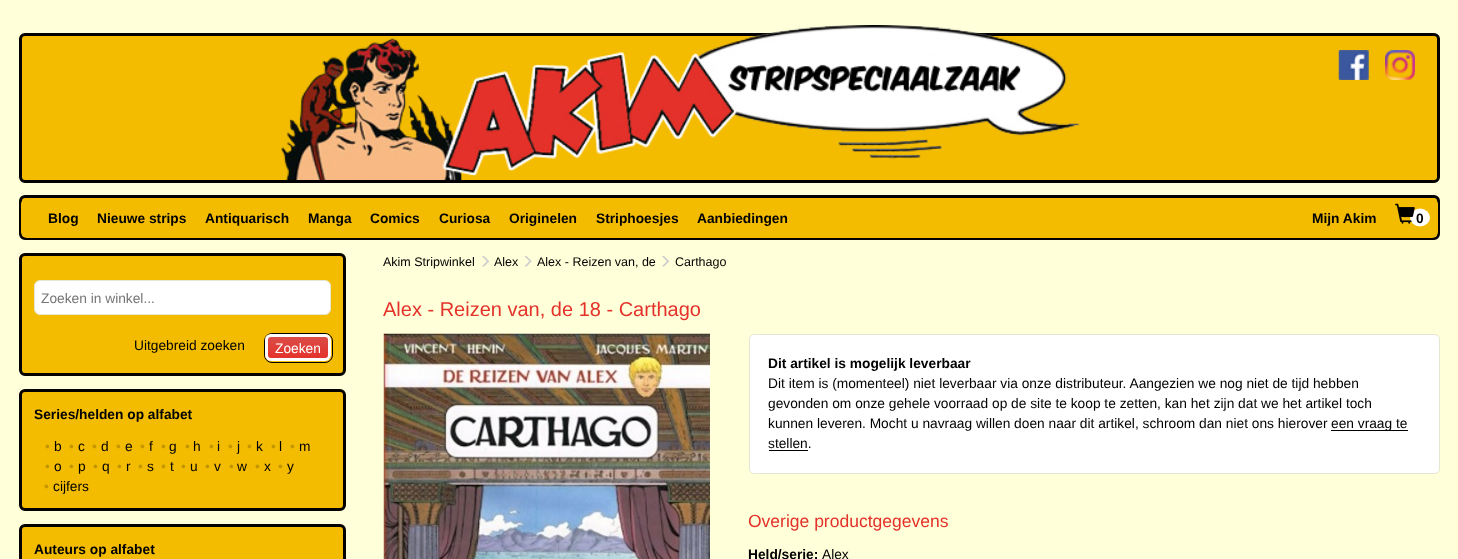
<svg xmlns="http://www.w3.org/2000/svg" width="1458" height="559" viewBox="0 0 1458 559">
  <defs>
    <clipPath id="clip1"><rect x="265" y="334" width="66" height="27" rx="6"/></clipPath>
    <linearGradient id="g1" gradientUnits="userSpaceOnUse" x1="298" y1="336" x2="298" y2="359"><stop offset="0.01" stop-color="#e25651"/><stop offset="0.01" stop-color="#db4d48"/><stop offset="1" stop-color="#e4312a"/><stop offset="1" stop-color="#e25651"/><stop offset="1" stop-color="#e4312a"/></linearGradient>
  </defs>
  <rect width="100%" height="100%" fill="#ffffd9"/>
  <rect x="20.5" y="34.5" width="1418" height="147" rx="4.5" fill="#f3bc00" stroke="#020100" stroke-width="3"/>
  <image x="281" y="25" width="799" height="155" href="img1.png"/>
  <image x="1338" y="50" width="31" height="30" href="img2.png"/>
  <image x="1385" y="50" width="30" height="30" href="img3.png"/>
  <rect x="20.5" y="196.5" width="1418" height="42" rx="4.5" fill="#f3bc00" stroke="#020100" stroke-width="3"/>
  <rect x="21" y="198" width="1417" height="40" rx="6" fill="#f3bc00"/>
  <text x="48" y="223" font-family="Liberation Sans" font-size="13.75" font-weight="bold" fill="#000000">Blog</text>
  <text x="97" y="223" font-family="Liberation Sans" font-size="13.75" font-weight="bold" fill="#000000">Nieuwe strips</text>
  <text x="205" y="223" font-family="Liberation Sans" font-size="13.75" font-weight="bold" fill="#000000">Antiquarisch</text>
  <text x="308" y="223" font-family="Liberation Sans" font-size="13.75" font-weight="bold" fill="#000000">Manga</text>
  <text x="370" y="223" font-family="Liberation Sans" font-size="13.75" font-weight="bold" fill="#000000">Comics</text>
  <text x="439" y="223" font-family="Liberation Sans" font-size="13.75" font-weight="bold" fill="#000000">Curiosa</text>
  <text x="509" y="223" font-family="Liberation Sans" font-size="13.75" font-weight="bold" fill="#000000">Originelen</text>
  <text x="596" y="223" font-family="Liberation Sans" font-size="13.75" font-weight="bold" fill="#000000">Striphoesjes</text>
  <text x="697" y="223" font-family="Liberation Sans" font-size="13.75" font-weight="bold" fill="#000000">Aanbiedingen</text>
  <text x="1312" y="223" font-family="Liberation Sans" font-size="13.75" font-weight="bold" fill="#000000">Mijn Akim</text>
  <ellipse cx="1420" cy="217.5" rx="10" ry="9" fill="#ffffff"/>
  <image x="1395" y="203" width="20" height="21" href="img4.png"/>
  <text x="1416" y="223" font-family="Liberation Sans" font-size="13.75" font-weight="bold" fill="#000000">0</text>
  <rect x="20.5" y="254.5" width="324" height="120" rx="4.5" fill="#f3bc00" stroke="#020100" stroke-width="3"/>
  <rect x="34.5" y="280.5" width="296" height="34" rx="5.5" fill="#ffffff" stroke="#e6e6d2"/>
  <text x="41" y="303" font-family="Liberation Sans" font-size="13.75" fill="#757575">Zoeken in winkel...</text>
  <text x="134" y="350" font-family="Liberation Sans" font-size="13.75" fill="#000000">Uitgebreid zoeken</text>
  <rect x="264.5" y="333.5" width="68" height="29" rx="7.5" fill="none" stroke="#000000"/>
  <g clip-path="url(#clip1)">
    <rect x="265" y="336" width="66" height="23" fill="url(#g1)"/>
  </g>
  <rect x="266.5" y="335.5" width="63" height="24" rx="4.5" fill="none" stroke="#ffffff" stroke-width="3"/>
  <text x="275" y="353" font-family="Liberation Sans" font-size="13.75" fill="#ffffff">Zoeken</text>
  <rect x="20.5" y="390.5" width="324" height="119" rx="4.5" fill="#f3bc00" stroke="#020100" stroke-width="3"/>
  <text x="34" y="419" font-family="Liberation Sans" font-size="13.75" font-weight="bold" fill="#000000">Series/helden op alfabet</text>
  <text x="45" y="451" font-family="Liberation Sans" font-size="13.75" fill="#c29600">•</text>
  <text x="54" y="451" font-family="Liberation Sans" font-size="13.75" fill="#000000">b</text>
  <text x="69" y="451" font-family="Liberation Sans" font-size="13.75" fill="#c29600">•</text>
  <text x="78" y="451" font-family="Liberation Sans" font-size="13.75" fill="#000000">c</text>
  <text x="92" y="451" font-family="Liberation Sans" font-size="13.75" fill="#c29600">•</text>
  <text x="101" y="451" font-family="Liberation Sans" font-size="13.75" fill="#000000">d</text>
  <text x="116" y="451" font-family="Liberation Sans" font-size="13.75" fill="#c29600">•</text>
  <text x="125" y="451" font-family="Liberation Sans" font-size="13.75" fill="#000000">e</text>
  <text x="140" y="451" font-family="Liberation Sans" font-size="13.75" fill="#c29600">•</text>
  <text x="149" y="451" font-family="Liberation Sans" font-size="13.75" fill="#000000">f</text>
  <text x="161" y="451" font-family="Liberation Sans" font-size="13.75" fill="#c29600">•</text>
  <text x="169" y="451" font-family="Liberation Sans" font-size="13.75" fill="#000000">g</text>
  <text x="185" y="451" font-family="Liberation Sans" font-size="13.75" fill="#c29600">•</text>
  <text x="193" y="451" font-family="Liberation Sans" font-size="13.75" fill="#000000">h</text>
  <text x="209" y="451" font-family="Liberation Sans" font-size="13.75" fill="#c29600">•</text>
  <text x="217" y="451" font-family="Liberation Sans" font-size="13.75" fill="#000000">i</text>
  <text x="228" y="451" font-family="Liberation Sans" font-size="13.75" fill="#c29600">•</text>
  <text x="237" y="451" font-family="Liberation Sans" font-size="13.75" fill="#000000">j</text>
  <text x="247" y="451" font-family="Liberation Sans" font-size="13.75" fill="#c29600">•</text>
  <text x="256" y="451" font-family="Liberation Sans" font-size="13.75" fill="#000000">k</text>
  <text x="271" y="451" font-family="Liberation Sans" font-size="13.75" fill="#c29600">•</text>
  <text x="279" y="451" font-family="Liberation Sans" font-size="13.75" fill="#000000">l</text>
  <text x="290" y="451" font-family="Liberation Sans" font-size="13.75" fill="#c29600">•</text>
  <text x="299" y="451" font-family="Liberation Sans" font-size="13.75" fill="#000000">m</text>
  <text x="45" y="471" font-family="Liberation Sans" font-size="13.75" fill="#c29600">•</text>
  <text x="54" y="471" font-family="Liberation Sans" font-size="13.75" fill="#000000">o</text>
  <text x="69" y="471" font-family="Liberation Sans" font-size="13.75" fill="#c29600">•</text>
  <text x="78" y="471" font-family="Liberation Sans" font-size="13.75" fill="#000000">p</text>
  <text x="93" y="471" font-family="Liberation Sans" font-size="13.75" fill="#c29600">•</text>
  <text x="102" y="471" font-family="Liberation Sans" font-size="13.75" fill="#000000">q</text>
  <text x="117" y="471" font-family="Liberation Sans" font-size="13.75" fill="#c29600">•</text>
  <text x="126" y="471" font-family="Liberation Sans" font-size="13.75" fill="#000000">r</text>
  <text x="138" y="471" font-family="Liberation Sans" font-size="13.75" fill="#c29600">•</text>
  <text x="147" y="471" font-family="Liberation Sans" font-size="13.75" fill="#000000">s</text>
  <text x="161" y="471" font-family="Liberation Sans" font-size="13.75" fill="#c29600">•</text>
  <text x="170" y="471" font-family="Liberation Sans" font-size="13.75" fill="#000000">t</text>
  <text x="181" y="471" font-family="Liberation Sans" font-size="13.75" fill="#c29600">•</text>
  <text x="190" y="471" font-family="Liberation Sans" font-size="13.75" fill="#000000">u</text>
  <text x="205" y="471" font-family="Liberation Sans" font-size="13.75" fill="#c29600">•</text>
  <text x="214" y="471" font-family="Liberation Sans" font-size="13.75" fill="#000000">v</text>
  <text x="229" y="471" font-family="Liberation Sans" font-size="13.75" fill="#c29600">•</text>
  <text x="237" y="471" font-family="Liberation Sans" font-size="13.75" fill="#000000">w</text>
  <text x="255" y="471" font-family="Liberation Sans" font-size="13.75" fill="#c29600">•</text>
  <text x="264" y="471" font-family="Liberation Sans" font-size="13.75" fill="#000000">x</text>
  <text x="278" y="471" font-family="Liberation Sans" font-size="13.75" fill="#c29600">•</text>
  <text x="287" y="471" font-family="Liberation Sans" font-size="13.75" fill="#000000">y</text>
  <text x="44" y="491" font-family="Liberation Sans" font-size="13.75" fill="#c29600">•</text>
  <text x="53" y="491" font-family="Liberation Sans" font-size="13.75" fill="#000000">cijfers</text>
  <rect x="20.5" y="525.5" width="324" height="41" rx="4.5" fill="#f3bc00" stroke="#020100" stroke-width="3"/>
  <text x="34" y="554" font-family="Liberation Sans" font-size="13.75" font-weight="bold" fill="#000000">Auteurs op alfabet</text>
  <text x="383" y="266" font-family="Liberation Sans" font-size="12.5" fill="#000000">Akim Stripwinkel</text>
  <image x="482" y="256" width="7" height="11" href="img5.png"/>
  <text x="494" y="266" font-family="Liberation Sans" font-size="12.5" fill="#000000">Alex</text>
  <image x="524" y="256" width="8" height="11" href="img6.png"/>
  <text x="537" y="266" font-family="Liberation Sans" font-size="12.5" fill="#000000">Alex - Reizen van, de</text>
  <image x="662" y="256" width="7" height="11" href="img5.png"/>
  <text x="675" y="266" font-family="Liberation Sans" font-size="12.5" fill="#000000">Carthago</text>
  <text x="383" y="316" font-family="Liberation Sans" font-size="20" fill="#e4312a">Alex - Reizen van, de 18 - Carthago</text>
  <image x="383" y="333" width="327" height="226" href="img7.png"/>
  <rect x="749.5" y="334.5" width="690" height="139" rx="4.5" fill="#ffffff" stroke="#e6e6d2"/>
  <text x="768" y="368" font-family="Liberation Sans" font-size="13.75" font-weight="bold" fill="#000000">Dit artikel is mogelijk leverbaar</text>
  <text x="768" y="388" font-family="Liberation Sans" font-size="13.75" fill="#000000">Dit item is (momenteel) niet leverbaar via onze distributeur. Aangezien we nog niet de tijd hebben</text>
  <text x="768" y="408" font-family="Liberation Sans" font-size="13.75" fill="#000000">gevonden om onze gehele voorraad op de site te koop te zetten, kan het zijn dat we het artikel toch</text>
  <text x="768" y="428" font-family="Liberation Sans" font-size="13.75" fill="#000000">kunnen leveren. Mocht u navraag willen doen naar dit artikel, schroom dan niet ons hierover</text>
  <rect x="1331" y="430" width="77" height="1" fill="#000000"/>
  <text x="1331" y="428" font-family="Liberation Sans" font-size="13.75" fill="#000000">een vraag te</text>
  <text x="768" y="448" font-family="Liberation Sans" font-size="13.75" fill="#000000">stellen.</text>
  <rect x="769" y="450" width="39" height="1" fill="#000000"/>
  <text x="748" y="527" font-family="Liberation Sans" font-size="17.5" fill="#e4312a">Overige productgegevens</text>
  <text x="748" y="559" font-family="Liberation Sans" font-size="13.75" font-weight="bold" fill="#000000">Held/serie:</text>
  <text x="822" y="559" font-family="Liberation Sans" font-size="13.75" fill="#000000">Alex</text>
</svg>
